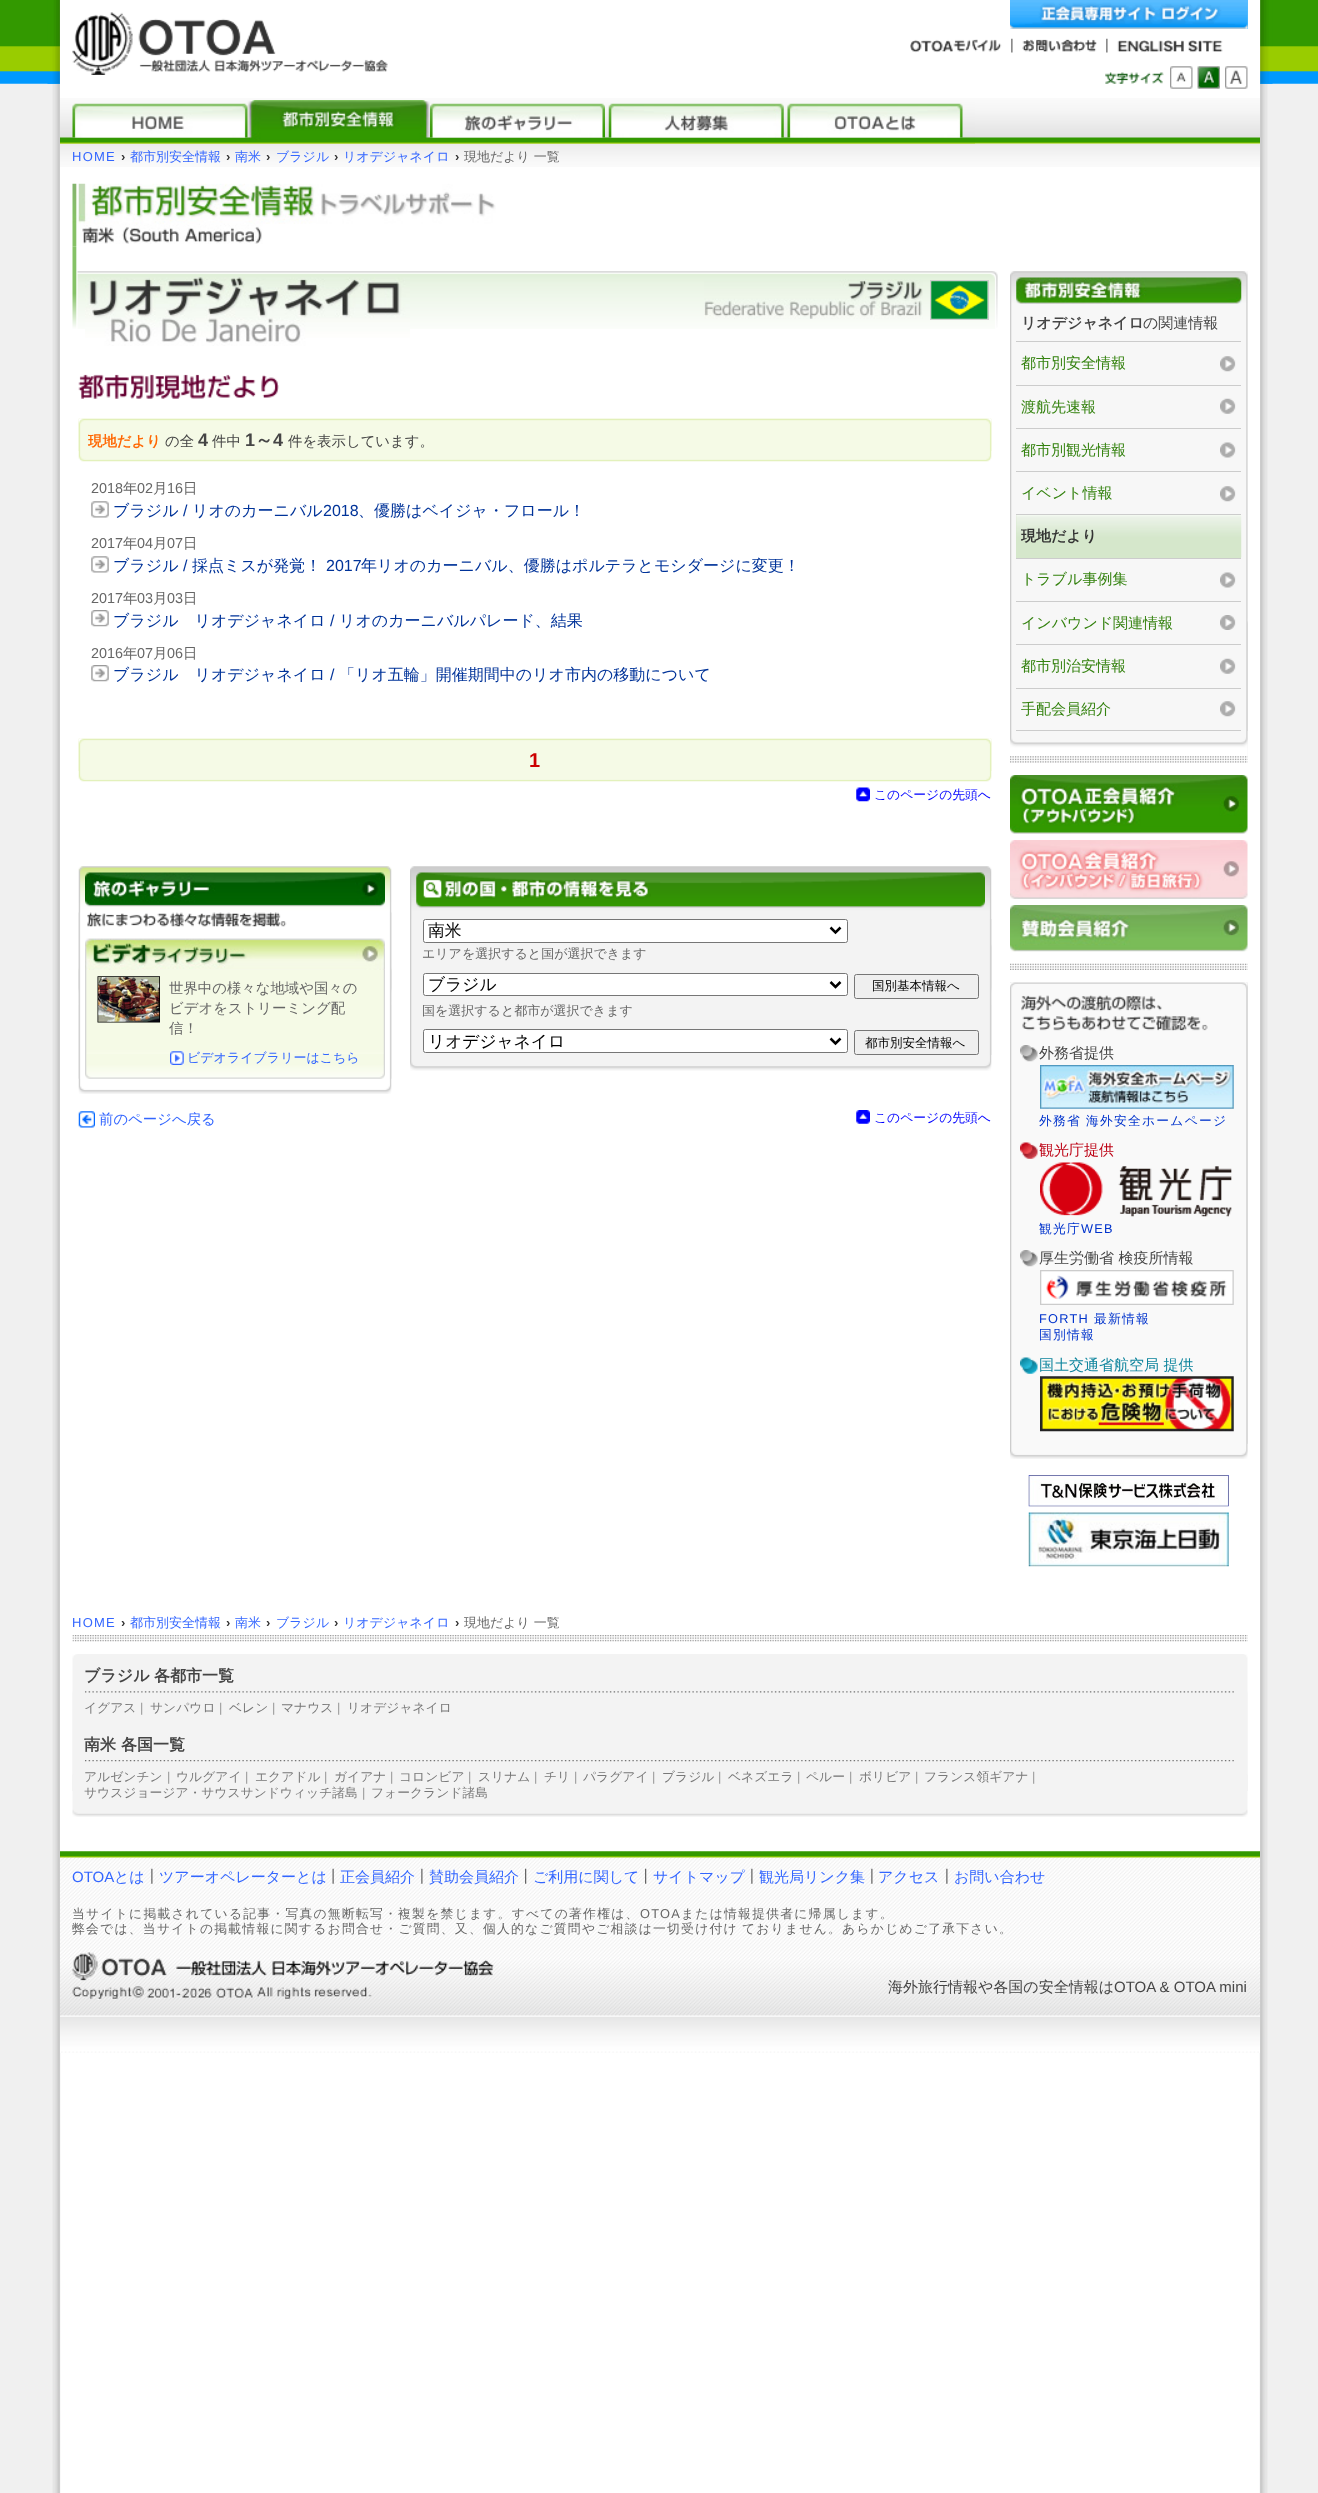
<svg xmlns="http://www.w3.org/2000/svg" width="1318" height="2493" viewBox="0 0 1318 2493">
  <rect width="100%" height="100%" fill="#f0f0f0"/>
  <image x="52" y="83" width="1216" height="2410" href="img1.png"/>
  <image x="0" y="0" width="1318" height="84" href="img2.png"/>
  <image x="47" y="0" width="1226" height="84" href="img3.png"/>
  <rect x="60" y="0" width="1200" height="144" fill="#ffffff"/>
  <image x="60" y="98" width="1200" height="46" href="img4.png"/>
  <image x="72" y="12" width="316" height="63" href="img5.png"/>
  <rect x="1010" y="0" width="238" height="29" fill="#59bcff"/>
  <image x="1010" y="2" width="238" height="27" href="img6.png"/>
  <image x="910" y="39" width="92" height="14" href="img7.png"/>
  <image x="1011" y="38" width="2" height="15" href="img8.png"/>
  <image x="1022" y="39" width="75" height="13" href="img9.png"/>
  <image x="1106" y="38" width="2" height="15" href="img8.png"/>
  <image x="1117" y="40" width="106" height="13" href="img10.png"/>
  <image x="1105" y="72" width="59" height="12" href="img11.png"/>
  <image x="1170" y="66" width="23" height="23" href="img12.png"/>
  <image x="1197" y="66" width="23" height="23" href="img13.png"/>
  <image x="1225" y="66" width="23" height="23" href="img14.png"/>
  <image x="60" y="100" width="915" height="44" href="img15.png"/>
  <image x="72" y="103" width="176" height="35" href="img16.png"/>
  <image x="430" y="103" width="175" height="35" href="img17.png"/>
  <image x="608" y="103" width="176" height="35" href="img18.png"/>
  <image x="787" y="103" width="176" height="35" href="img19.png"/>
  <rect x="60" y="167" width="1200" height="1886" fill="#ffffff"/>
  <image x="60" y="143" width="1200" height="24" href="img20.png"/>
  <text x="72" y="161" font-family="Liberation Sans" font-size="13" letter-spacing="1.25" fill="#3366ff">HOME</text>
  <text x="121" y="161" font-family="Liberation Sans" font-size="13" font-weight="bold" fill="#333333">›</text>
  <text x="130" y="161" font-family="WenQuanYi Zen Hei" font-size="13" font-weight="500" fill="#3366ff">都市別安全情報</text>
  <text x="226" y="161" font-family="Liberation Sans" font-size="13" font-weight="bold" fill="#333333">›</text>
  <text x="235" y="161" font-family="WenQuanYi Zen Hei" font-size="13" font-weight="500" fill="#3366ff">南米</text>
  <text x="266" y="161" font-family="Liberation Sans" font-size="13" font-weight="bold" fill="#333333">›</text>
  <text x="276" y="161" font-family="WenQuanYi Zen Hei" font-size="13" font-weight="500" fill="#3366ff">ブラジル</text>
  <text x="334" y="161" font-family="Liberation Sans" font-size="13" font-weight="bold" fill="#333333">›</text>
  <text x="343" y="161" font-family="WenQuanYi Zen Hei" font-size="13" font-weight="500" fill="#3366ff">リオデジャネイロ</text>
  <text x="455" y="161" font-family="Liberation Sans" font-size="13" font-weight="bold" fill="#333333">›</text>
  <text x="464" y="161" font-family="WenQuanYi Zen Hei" font-size="13" font-weight="500" fill="#666666">現地だより 一覧</text>
  <image x="72" y="183" width="424" height="64" href="img21.png"/>
  <image x="72" y="246" width="926" height="83" href="img22.png"/>
  <image x="85" y="277" width="325" height="69" href="img23.png"/>
  <image x="704" y="279" width="219" height="40" href="img24.png"/>
  <rect x="930.5" y="280.5" width="58" height="39" fill="none" stroke="#cccccc"/>
  <image x="931" y="281" width="57" height="38" href="img25.png"/>
  <image x="78" y="374" width="201" height="25" href="img26.png"/>
  <image x="78" y="418" width="914" height="44" href="img27.png"/>
  <image x="78" y="418" width="914" height="33" href="img28.png"/>
  <text x="88" y="446" font-family="WenQuanYi Zen Hei" font-size="14.4" font-weight="bold" fill="#ff6600">現地だより</text>
  <text x="165" y="446" font-family="WenQuanYi Zen Hei" font-size="14.4" font-weight="500" fill="#454545">の全</text>
  <text x="198" y="446" font-family="Liberation Sans" font-size="18" font-weight="bold" fill="#454545">4</text>
  <text x="212" y="446" font-family="WenQuanYi Zen Hei" font-size="14.4" font-weight="500" fill="#454545">件中</text>
  <text x="245" y="446" font-family="Liberation Sans" font-size="18" font-weight="bold" fill="#454545">1</text>
  <text x="255" y="446" font-family="WenQuanYi Zen Hei" font-size="18" font-weight="bold" fill="#454545">～</text>
  <text x="273" y="446" font-family="Liberation Sans" font-size="18" font-weight="bold" fill="#454545">4</text>
  <text x="288" y="446" font-family="WenQuanYi Zen Hei" font-size="14.4" font-weight="500" fill="#454545">件を表示しています。</text>
  <text x="91" y="493" font-family="Liberation Sans" font-size="14.4" fill="#666666">2018</text>
  <text x="123" y="493" font-family="WenQuanYi Zen Hei" font-size="14.4" font-weight="500" fill="#666666">年</text>
  <text x="137" y="493" font-family="Liberation Sans" font-size="14.4" fill="#666666">02</text>
  <text x="153" y="493" font-family="WenQuanYi Zen Hei" font-size="14.4" font-weight="500" fill="#666666">月</text>
  <text x="167" y="493" font-family="Liberation Sans" font-size="14.4" fill="#666666">16</text>
  <text x="183" y="493" font-family="WenQuanYi Zen Hei" font-size="14.4" font-weight="500" fill="#666666">日</text>
  <image x="91" y="501" width="18" height="17" href="img29.png"/>
  <text x="113" y="516" font-family="WenQuanYi Zen Hei" font-size="16" font-weight="500" fill="#003399">ブラジル</text>
  <text x="183" y="516" font-family="Liberation Sans" font-size="16" fill="#003399">/</text>
  <text x="192" y="516" font-family="WenQuanYi Zen Hei" font-size="16" font-weight="500" fill="#003399">リオのカーニバル</text>
  <text x="323" y="516" font-family="Liberation Sans" font-size="16" fill="#003399">2018</text>
  <text x="358" y="516" font-family="WenQuanYi Zen Hei" font-size="16" font-weight="500" fill="#003399">、優勝はベイジャ・フロール！</text>
  <text x="91" y="548" font-family="Liberation Sans" font-size="14.4" fill="#666666">2017</text>
  <text x="123" y="548" font-family="WenQuanYi Zen Hei" font-size="14.4" font-weight="500" fill="#666666">年</text>
  <text x="137" y="548" font-family="Liberation Sans" font-size="14.4" fill="#666666">04</text>
  <text x="153" y="548" font-family="WenQuanYi Zen Hei" font-size="14.4" font-weight="500" fill="#666666">月</text>
  <text x="167" y="548" font-family="Liberation Sans" font-size="14.4" fill="#666666">07</text>
  <text x="183" y="548" font-family="WenQuanYi Zen Hei" font-size="14.4" font-weight="500" fill="#666666">日</text>
  <image x="91" y="556" width="18" height="17" href="img29.png"/>
  <text x="113" y="571" font-family="WenQuanYi Zen Hei" font-size="16" font-weight="500" fill="#003399">ブラジル</text>
  <text x="183" y="571" font-family="Liberation Sans" font-size="16" fill="#003399">/</text>
  <text x="192" y="571" font-family="WenQuanYi Zen Hei" font-size="16" font-weight="500" fill="#003399">採点ミスが発覚！</text>
  <text x="326" y="571" font-family="Liberation Sans" font-size="16" fill="#003399">2017</text>
  <text x="361" y="571" font-family="WenQuanYi Zen Hei" font-size="16" font-weight="500" fill="#003399">年リオのカーニバル、優勝はポルテラとモシダージに変更！</text>
  <text x="91" y="603" font-family="Liberation Sans" font-size="14.4" fill="#666666">2017</text>
  <text x="123" y="603" font-family="WenQuanYi Zen Hei" font-size="14.4" font-weight="500" fill="#666666">年</text>
  <text x="137" y="603" font-family="Liberation Sans" font-size="14.4" fill="#666666">03</text>
  <text x="153" y="603" font-family="WenQuanYi Zen Hei" font-size="14.4" font-weight="500" fill="#666666">月</text>
  <text x="167" y="603" font-family="Liberation Sans" font-size="14.4" fill="#666666">03</text>
  <text x="183" y="603" font-family="WenQuanYi Zen Hei" font-size="14.4" font-weight="500" fill="#666666">日</text>
  <image x="91" y="610" width="18" height="17" href="img30.png"/>
  <text x="113" y="626" font-family="WenQuanYi Zen Hei" font-size="16" font-weight="500" fill="#003399">ブラジル　リオデジャネイロ</text>
  <text x="330" y="626" font-family="Liberation Sans" font-size="16" fill="#003399">/</text>
  <text x="339" y="626" font-family="WenQuanYi Zen Hei" font-size="16" font-weight="500" fill="#003399">リオのカーニバルパレード、結果</text>
  <text x="91" y="658" font-family="Liberation Sans" font-size="14.4" fill="#666666">2016</text>
  <text x="123" y="658" font-family="WenQuanYi Zen Hei" font-size="14.4" font-weight="500" fill="#666666">年</text>
  <text x="137" y="658" font-family="Liberation Sans" font-size="14.4" fill="#666666">07</text>
  <text x="153" y="658" font-family="WenQuanYi Zen Hei" font-size="14.4" font-weight="500" fill="#666666">月</text>
  <text x="167" y="658" font-family="Liberation Sans" font-size="14.4" fill="#666666">06</text>
  <text x="183" y="658" font-family="WenQuanYi Zen Hei" font-size="14.4" font-weight="500" fill="#666666">日</text>
  <image x="91" y="665" width="18" height="17" href="img30.png"/>
  <text x="113" y="680" font-family="WenQuanYi Zen Hei" font-size="16" font-weight="500" fill="#003399">ブラジル　リオデジャネイロ</text>
  <text x="330" y="680" font-family="Liberation Sans" font-size="16" fill="#003399">/</text>
  <text x="339" y="680" font-family="WenQuanYi Zen Hei" font-size="16" font-weight="500" fill="#003399">「リオ五輪」開催期間中のリオ市内の移動について</text>
  <image x="78" y="738" width="914" height="44" href="img31.png"/>
  <image x="78" y="738" width="914" height="33" href="img32.png"/>
  <text x="529" y="767" font-family="Liberation Sans" font-size="20" font-weight="bold" fill="#cc0000">1</text>
  <image x="856" y="787" width="14" height="15" href="img33.png"/>
  <text x="874" y="799" font-family="WenQuanYi Zen Hei" font-size="12.8" font-weight="500" fill="#0000ff">このページの先頭へ</text>
  <image x="78" y="966" width="314" height="128" href="img34.png"/>
  <image x="78" y="866" width="314" height="139" href="img35.png"/>
  <image x="85" y="872" width="300" height="35" href="img36.png"/>
  <image x="78" y="912" width="314" height="167" href="img37.png"/>
  <image x="87" y="912" width="200" height="15" href="img38.png"/>
  <image x="85" y="1065" width="300" height="14" href="img39.png"/>
  <image x="85" y="938" width="300" height="116" href="img40.png"/>
  <image x="85" y="938" width="300" height="32" href="img41.png"/>
  <image x="85" y="1054" width="300" height="11" href="img42.png"/>
  <image x="97" y="976" width="63" height="47" href="img43.png"/>
  <text x="169" y="993" font-family="WenQuanYi Zen Hei" font-size="14.4" font-weight="500" fill="#666666">世界中の様々な地域や国々の</text>
  <text x="169" y="1013" font-family="WenQuanYi Zen Hei" font-size="14.4" font-weight="500" fill="#666666">ビデオをストリーミング配</text>
  <text x="169" y="1033" font-family="WenQuanYi Zen Hei" font-size="14.4" font-weight="500" fill="#666666">信！</text>
  <image x="170" y="1051" width="14" height="14" href="img44.png"/>
  <text x="187" y="1062" font-family="WenQuanYi Zen Hei" font-size="13" font-weight="500" fill="#3366ff">ビデオライブラリーはこちら</text>
  <image x="410" y="942" width="582" height="129" href="img45.png"/>
  <image x="410" y="866" width="582" height="139" href="img46.png"/>
  <image x="416" y="872" width="569" height="36" href="img47.png"/>
  <image x="423" y="879" width="228" height="20" href="img48.png"/>
  <image x="410" y="919" width="582" height="136" href="img49.png"/>
  <rect x="423.5" y="919.5" width="424" height="23" rx="2" fill="#ffffff" stroke="#767676"/>
  <path d="M830.5 927.5L835.5 932.5L840.5 927.5" fill="none" stroke="#000000" stroke-width="2.5"/>
  <text x="428" y="936" font-family="WenQuanYi Zen Hei" font-size="16.75" font-weight="500" fill="#000000">南米</text>
  <text x="422" y="958" font-family="WenQuanYi Zen Hei" font-size="13" font-weight="500" fill="#666666">エリアを選択すると国が選択できます</text>
  <rect x="423.5" y="973.5" width="424" height="22" rx="2" fill="#ffffff" stroke="#767676"/>
  <path d="M830.5 982L835.5 987L840.5 982" fill="none" stroke="#000000" stroke-width="2.5"/>
  <text x="428" y="990" font-family="WenQuanYi Zen Hei" font-size="16.75" font-weight="500" fill="#000000">ブラジル</text>
  <rect x="854.5" y="974.5" width="124" height="24" rx="2" fill="#efefef" stroke="#767676"/>
  <text x="872" y="990" font-family="WenQuanYi Zen Hei" font-size="12.5" font-weight="500" fill="#000000">国別基本情報へ</text>
  <text x="422" y="1015" font-family="WenQuanYi Zen Hei" font-size="13" font-weight="500" fill="#666666">国を選択すると都市が選択できます</text>
  <rect x="423.5" y="1029.5" width="424" height="23" rx="2" fill="#ffffff" stroke="#767676"/>
  <path d="M830.5 1038.5L835.5 1043.5L840.5 1038.5" fill="none" stroke="#000000" stroke-width="2.5"/>
  <text x="428" y="1047" font-family="WenQuanYi Zen Hei" font-size="16.75" font-weight="500" fill="#000000">リオデジャネイロ</text>
  <rect x="854.5" y="1030.5" width="124" height="24" rx="2" fill="#efefef" stroke="#767676"/>
  <text x="865" y="1047" font-family="WenQuanYi Zen Hei" font-size="12.5" font-weight="500" fill="#000000">都市別安全情報へ</text>
  <image x="78" y="1111" width="17" height="17" href="img50.png"/>
  <text x="99" y="1124" font-family="WenQuanYi Zen Hei" font-size="14.4" font-weight="500" fill="#3366ff">前のページへ戻る</text>
  <image x="856" y="1110" width="14" height="14" href="img51.png"/>
  <text x="874" y="1122" font-family="WenQuanYi Zen Hei" font-size="12.8" font-weight="500" fill="#0000ff">このページの先頭へ</text>
  <rect x="1010" y="271" width="238" height="485" fill="#f7f7f7"/>
  <image x="1010" y="618" width="238" height="138" href="img52.png"/>
  <image x="1010" y="271" width="238" height="39" href="img53.png"/>
  <image x="1016" y="277" width="226" height="27" href="img54.png"/>
  <image x="1010" y="310" width="238" height="421" href="img55.png"/>
  <text x="1021" y="328" font-family="WenQuanYi Zen Hei" font-size="15" font-weight="bold" fill="#454545">リオデジャネイロ</text>
  <text x="1143" y="328" font-family="WenQuanYi Zen Hei" font-size="15" font-weight="500" fill="#454545">の関連情報</text>
  <rect x="1016" y="730" width="225" height="1" fill="#cccccc"/>
  <rect x="1016" y="341" width="225" height="1" fill="#cccccc"/>
  <image x="1220" y="356" width="16" height="16" href="img56.png"/>
  <text x="1021" y="368" font-family="WenQuanYi Zen Hei" font-size="15" font-weight="500" fill="#34820f">都市別安全情報</text>
  <rect x="1016" y="385" width="225" height="1" fill="#cccccc"/>
  <image x="1220" y="398" width="16" height="16" href="img57.png"/>
  <text x="1021" y="412" font-family="WenQuanYi Zen Hei" font-size="15" font-weight="500" fill="#34820f">渡航先速報</text>
  <rect x="1016" y="428" width="225" height="1" fill="#cccccc"/>
  <image x="1220" y="442" width="16" height="16" href="img58.png"/>
  <text x="1021" y="455" font-family="WenQuanYi Zen Hei" font-size="15" font-weight="500" fill="#34820f">都市別観光情報</text>
  <rect x="1016" y="471" width="225" height="1" fill="#cccccc"/>
  <image x="1220" y="486" width="16" height="16" href="img56.png"/>
  <text x="1021" y="498" font-family="WenQuanYi Zen Hei" font-size="15" font-weight="500" fill="#34820f">イベント情報</text>
  <rect x="1016" y="514" width="225" height="1" fill="#cccccc"/>
  <rect x="1016" y="515" width="225" height="43" fill="#d5e7cb"/>
  <image x="1016" y="515" width="226" height="43" href="img59.png"/>
  <text x="1021" y="541" font-family="WenQuanYi Zen Hei" font-size="15" font-weight="bold" fill="#333333">現地だより</text>
  <rect x="1016" y="558" width="225" height="1" fill="#cccccc"/>
  <image x="1220" y="572" width="16" height="16" href="img58.png"/>
  <text x="1021" y="584" font-family="WenQuanYi Zen Hei" font-size="15" font-weight="500" fill="#34820f">トラブル事例集</text>
  <rect x="1016" y="601" width="225" height="1" fill="#cccccc"/>
  <image x="1220" y="615" width="16" height="15" href="img60.png"/>
  <text x="1021" y="628" font-family="WenQuanYi Zen Hei" font-size="15" font-weight="500" fill="#34820f">インバウンド関連情報</text>
  <rect x="1016" y="644" width="225" height="1" fill="#cccccc"/>
  <image x="1220" y="658" width="16" height="16" href="img57.png"/>
  <text x="1021" y="671" font-family="WenQuanYi Zen Hei" font-size="15" font-weight="500" fill="#34820f">都市別治安情報</text>
  <rect x="1016" y="688" width="225" height="1" fill="#cccccc"/>
  <image x="1220" y="701" width="16" height="16" href="img56.png"/>
  <text x="1021" y="714" font-family="WenQuanYi Zen Hei" font-size="15" font-weight="500" fill="#34820f">手配会員紹介</text>
  <image x="1010" y="756" width="238" height="7" href="img61.png"/>
  <image x="1010" y="775" width="238" height="59" href="img62.png"/>
  <image x="1010" y="840" width="238" height="59" href="img63.png"/>
  <image x="1010" y="905" width="238" height="47" href="img64.png"/>
  <image x="1010" y="963" width="238" height="7" href="img65.png"/>
  <image x="1010" y="982" width="238" height="477" href="img66.png"/>
  <image x="1010" y="982" width="238" height="462" href="img67.png"/>
  <image x="1021" y="995" width="187" height="36" href="img68.png"/>
  <image x="1020" y="1045" width="18" height="17" href="img69.png"/>
  <text x="1039" y="1058" font-family="WenQuanYi Zen Hei" font-size="15" font-weight="500" fill="#454545">外務省提供</text>
  <image x="1040" y="1065" width="194" height="44" href="img70.png"/>
  <text x="1039" y="1125" font-family="WenQuanYi Zen Hei" font-size="12.75" font-weight="500" letter-spacing="1.25" fill="#0033cc">外務省 海外安全ホームページ</text>
  <image x="1020" y="1142" width="18" height="17" href="img71.png"/>
  <text x="1039" y="1155" font-family="WenQuanYi Zen Hei" font-size="15" font-weight="500" fill="#bd0214">観光庁提供</text>
  <image x="1040" y="1162" width="192" height="55" href="img72.png"/>
  <text x="1039" y="1233" font-family="WenQuanYi Zen Hei" font-size="12.75" font-weight="500" letter-spacing="1.25" fill="#0033cc">観光庁</text>
  <text x="1081" y="1233" font-family="Liberation Sans" font-size="12.75" letter-spacing="1.25" fill="#0033cc">WEB</text>
  <image x="1020" y="1250" width="18" height="17" href="img69.png"/>
  <text x="1039" y="1263" font-family="WenQuanYi Zen Hei" font-size="15" font-weight="500" fill="#454545">厚生労働省 検疫所情報</text>
  <image x="1040" y="1270" width="194" height="35" href="img73.png"/>
  <text x="1039" y="1323" font-family="Liberation Sans" font-size="12.75" letter-spacing="1.25" fill="#0033cc">FORTH</text>
  <text x="1094" y="1323" font-family="WenQuanYi Zen Hei" font-size="12.75" font-weight="500" letter-spacing="1.25" fill="#0033cc">最新情報</text>
  <text x="1039" y="1339" font-family="WenQuanYi Zen Hei" font-size="12.75" font-weight="500" letter-spacing="1.25" fill="#0033cc">国別情報</text>
  <image x="1020" y="1357" width="18" height="17" href="img74.png"/>
  <text x="1039" y="1370" font-family="WenQuanYi Zen Hei" font-size="15" font-weight="500" fill="#0d849d">国土交通省航空局 提供</text>
  <image x="1040" y="1376" width="194" height="56" href="img75.png"/>
  <image x="1028" y="1475" width="201" height="32" href="img76.png"/>
  <image x="1028" y="1512" width="201" height="55" href="img77.png"/>
  <text x="72" y="1627" font-family="Liberation Sans" font-size="13" letter-spacing="1.25" fill="#3366ff">HOME</text>
  <text x="121" y="1627" font-family="Liberation Sans" font-size="13" font-weight="bold" fill="#333333">›</text>
  <text x="130" y="1627" font-family="WenQuanYi Zen Hei" font-size="13" font-weight="500" fill="#3366ff">都市別安全情報</text>
  <text x="226" y="1627" font-family="Liberation Sans" font-size="13" font-weight="bold" fill="#333333">›</text>
  <text x="235" y="1627" font-family="WenQuanYi Zen Hei" font-size="13" font-weight="500" fill="#3366ff">南米</text>
  <text x="266" y="1627" font-family="Liberation Sans" font-size="13" font-weight="bold" fill="#333333">›</text>
  <text x="276" y="1627" font-family="WenQuanYi Zen Hei" font-size="13" font-weight="500" fill="#3366ff">ブラジル</text>
  <text x="334" y="1627" font-family="Liberation Sans" font-size="13" font-weight="bold" fill="#333333">›</text>
  <text x="343" y="1627" font-family="WenQuanYi Zen Hei" font-size="13" font-weight="500" fill="#3366ff">リオデジャネイロ</text>
  <text x="455" y="1627" font-family="Liberation Sans" font-size="13" font-weight="bold" fill="#333333">›</text>
  <text x="464" y="1627" font-family="WenQuanYi Zen Hei" font-size="13" font-weight="500" fill="#666666">現地だより 一覧</text>
  <image x="72" y="1635" width="1176" height="7" href="img78.png"/>
  <image x="72" y="1689" width="1176" height="128" href="img79.png"/>
  <image x="72" y="1654" width="1176" height="121" href="img80.png"/>
  <rect x="72" y="1775" width="1176" height="16" fill="#f3f3f3"/>
  <text x="84" y="1681" font-family="WenQuanYi Zen Hei" font-size="16" font-weight="bold" fill="#454545">ブラジル</text>
  <text x="154" y="1681" font-family="WenQuanYi Zen Hei" font-size="16" font-weight="bold" fill="#454545">各都市一覧</text>
  <image x="85" y="1691" width="1149" height="2" href="img81.png"/>
  <text x="84" y="1712" font-family="WenQuanYi Zen Hei" font-size="12.8" font-weight="500" fill="#787878">イグアス</text>
  <text x="140" y="1712" font-family="Liberation Sans" font-size="12.8" fill="#999999">|</text>
  <text x="150" y="1712" font-family="WenQuanYi Zen Hei" font-size="12.8" font-weight="500" fill="#787878">サンパウロ</text>
  <text x="219" y="1712" font-family="Liberation Sans" font-size="12.8" fill="#999999">|</text>
  <text x="229" y="1712" font-family="WenQuanYi Zen Hei" font-size="12.8" font-weight="500" fill="#787878">ベレン</text>
  <text x="272" y="1712" font-family="Liberation Sans" font-size="12.8" fill="#999999">|</text>
  <text x="281" y="1712" font-family="WenQuanYi Zen Hei" font-size="12.8" font-weight="500" fill="#787878">マナウス</text>
  <text x="337" y="1712" font-family="Liberation Sans" font-size="12.8" fill="#999999">|</text>
  <text x="347" y="1712" font-family="WenQuanYi Zen Hei" font-size="12.8" font-weight="500" fill="#787878">リオデジャネイロ</text>
  <text x="84" y="1750" font-family="WenQuanYi Zen Hei" font-size="16" font-weight="bold" fill="#454545">南米</text>
  <text x="121" y="1750" font-family="WenQuanYi Zen Hei" font-size="16" font-weight="bold" fill="#454545">各国一覧</text>
  <image x="85" y="1760" width="1149" height="2" href="img82.png"/>
  <text x="84" y="1781" font-family="WenQuanYi Zen Hei" font-size="12.8" font-weight="500" fill="#787878">アルゼンチン</text>
  <text x="167" y="1781" font-family="Liberation Sans" font-size="12.8" fill="#999999">|</text>
  <text x="176" y="1781" font-family="WenQuanYi Zen Hei" font-size="12.8" font-weight="500" fill="#787878">ウルグアイ</text>
  <text x="245" y="1781" font-family="Liberation Sans" font-size="12.8" fill="#999999">|</text>
  <text x="255" y="1781" font-family="WenQuanYi Zen Hei" font-size="12.8" font-weight="500" fill="#787878">エクアドル</text>
  <text x="324" y="1781" font-family="Liberation Sans" font-size="12.8" fill="#999999">|</text>
  <text x="334" y="1781" font-family="WenQuanYi Zen Hei" font-size="12.8" font-weight="500" fill="#787878">ガイアナ</text>
  <text x="390" y="1781" font-family="Liberation Sans" font-size="12.8" fill="#999999">|</text>
  <text x="399" y="1781" font-family="WenQuanYi Zen Hei" font-size="12.8" font-weight="500" fill="#787878">コロンビア</text>
  <text x="468" y="1781" font-family="Liberation Sans" font-size="12.8" fill="#999999">|</text>
  <text x="478" y="1781" font-family="WenQuanYi Zen Hei" font-size="12.8" font-weight="500" fill="#787878">スリナム</text>
  <text x="534" y="1781" font-family="Liberation Sans" font-size="12.8" fill="#999999">|</text>
  <text x="544" y="1781" font-family="WenQuanYi Zen Hei" font-size="12.8" font-weight="500" fill="#787878">チリ</text>
  <text x="574" y="1781" font-family="Liberation Sans" font-size="12.8" fill="#999999">|</text>
  <text x="583" y="1781" font-family="WenQuanYi Zen Hei" font-size="12.8" font-weight="500" fill="#787878">パラグアイ</text>
  <text x="652" y="1781" font-family="Liberation Sans" font-size="12.8" fill="#999999">|</text>
  <text x="662" y="1781" font-family="WenQuanYi Zen Hei" font-size="12.8" font-weight="500" fill="#787878">ブラジル</text>
  <text x="718" y="1781" font-family="Liberation Sans" font-size="12.8" fill="#999999">|</text>
  <text x="728" y="1781" font-family="WenQuanYi Zen Hei" font-size="12.8" font-weight="500" fill="#787878">ベネズエラ</text>
  <text x="797" y="1781" font-family="Liberation Sans" font-size="12.8" fill="#999999">|</text>
  <text x="806" y="1781" font-family="WenQuanYi Zen Hei" font-size="12.8" font-weight="500" fill="#787878">ペルー</text>
  <text x="849" y="1781" font-family="Liberation Sans" font-size="12.8" fill="#999999">|</text>
  <text x="859" y="1781" font-family="WenQuanYi Zen Hei" font-size="12.8" font-weight="500" fill="#787878">ボリビア</text>
  <text x="915" y="1781" font-family="Liberation Sans" font-size="12.8" fill="#999999">|</text>
  <text x="924" y="1781" font-family="WenQuanYi Zen Hei" font-size="12.8" font-weight="500" fill="#787878">フランス領ギアナ</text>
  <text x="1032" y="1781" font-family="Liberation Sans" font-size="12.8" fill="#999999">|</text>
  <text x="84" y="1797" font-family="WenQuanYi Zen Hei" font-size="12.8" font-weight="500" fill="#787878">サウスジョージア・サウスサンドウィッチ諸島</text>
  <text x="362" y="1797" font-family="Liberation Sans" font-size="12.8" fill="#999999">|</text>
  <text x="371" y="1797" font-family="WenQuanYi Zen Hei" font-size="12.8" font-weight="500" fill="#787878">フォークランド諸島</text>
  <image x="60" y="1851" width="1200" height="202" href="img83.png"/>
  <image x="60" y="1851" width="1200" height="7" href="img84.png"/>
  <text x="72" y="1882" font-family="Liberation Sans" font-size="15" fill="#3366ff">OTOA</text>
  <text x="114" y="1882" font-family="WenQuanYi Zen Hei" font-size="15" font-weight="500" fill="#3366ff">とは</text>
  <image x="151" y="1868" width="2" height="16" href="img85.png"/>
  <text x="159" y="1882" font-family="WenQuanYi Zen Hei" font-size="15" font-weight="500" fill="#3366ff">ツアーオペレーターとは</text>
  <image x="332" y="1868" width="2" height="16" href="img86.png"/>
  <text x="340" y="1882" font-family="WenQuanYi Zen Hei" font-size="15" font-weight="500" fill="#3366ff">正会員紹介</text>
  <image x="421" y="1868" width="2" height="16" href="img85.png"/>
  <text x="429" y="1882" font-family="WenQuanYi Zen Hei" font-size="15" font-weight="500" fill="#3366ff">賛助会員紹介</text>
  <image x="525" y="1868" width="2" height="16" href="img87.png"/>
  <text x="533" y="1882" font-family="WenQuanYi Zen Hei" font-size="15" font-weight="500" fill="#3366ff">ご利用に関して</text>
  <image x="645" y="1868" width="2" height="16" href="img87.png"/>
  <text x="653" y="1882" font-family="WenQuanYi Zen Hei" font-size="15" font-weight="500" fill="#3366ff">サイトマップ</text>
  <image x="751" y="1868" width="2" height="16" href="img85.png"/>
  <text x="759" y="1882" font-family="WenQuanYi Zen Hei" font-size="15" font-weight="500" fill="#3366ff">観光局リンク集</text>
  <image x="871" y="1868" width="2" height="16" href="img85.png"/>
  <text x="878" y="1882" font-family="WenQuanYi Zen Hei" font-size="15" font-weight="500" fill="#3366ff">アクセス</text>
  <image x="946" y="1868" width="2" height="16" href="img85.png"/>
  <text x="954" y="1882" font-family="WenQuanYi Zen Hei" font-size="15" font-weight="500" fill="#3366ff">お問い合わせ</text>
  <text x="72" y="1918" font-family="WenQuanYi Zen Hei" font-size="12.8" font-weight="500" letter-spacing="1.25" fill="#666666">当サイトに掲載されている記事・写真の無断転写・複製を禁じます。すべての著作権は、</text>
  <text x="640" y="1918" font-family="Liberation Sans" font-size="12.8" letter-spacing="1.25" fill="#666666">OTOA</text>
  <text x="681" y="1918" font-family="WenQuanYi Zen Hei" font-size="12.8" font-weight="500" letter-spacing="1.25" fill="#666666">または情報提供者に帰属します。</text>
  <text x="72" y="1933" word-spacing="-1" font-family="WenQuanYi Zen Hei" font-size="12.8" font-weight="500" letter-spacing="1.25" fill="#666666">弊会では、当サイトの掲載情報に関するお問合せ・ご質問、又、個人的なご質問やご相談は一切受け付け ておりません。あらかじめご了承下さい。</text>
  <image x="72" y="1952" width="422" height="48" href="img88.png"/>
  <text x="888" y="1992" font-family="WenQuanYi Zen Hei" font-size="15" font-weight="500" fill="#454545">海外旅行情報や各国の安全情報は</text>
  <text x="1114" y="1992" font-family="Liberation Sans" font-size="15" fill="#454545">OTOA &amp; OTOA mini</text>
</svg>
